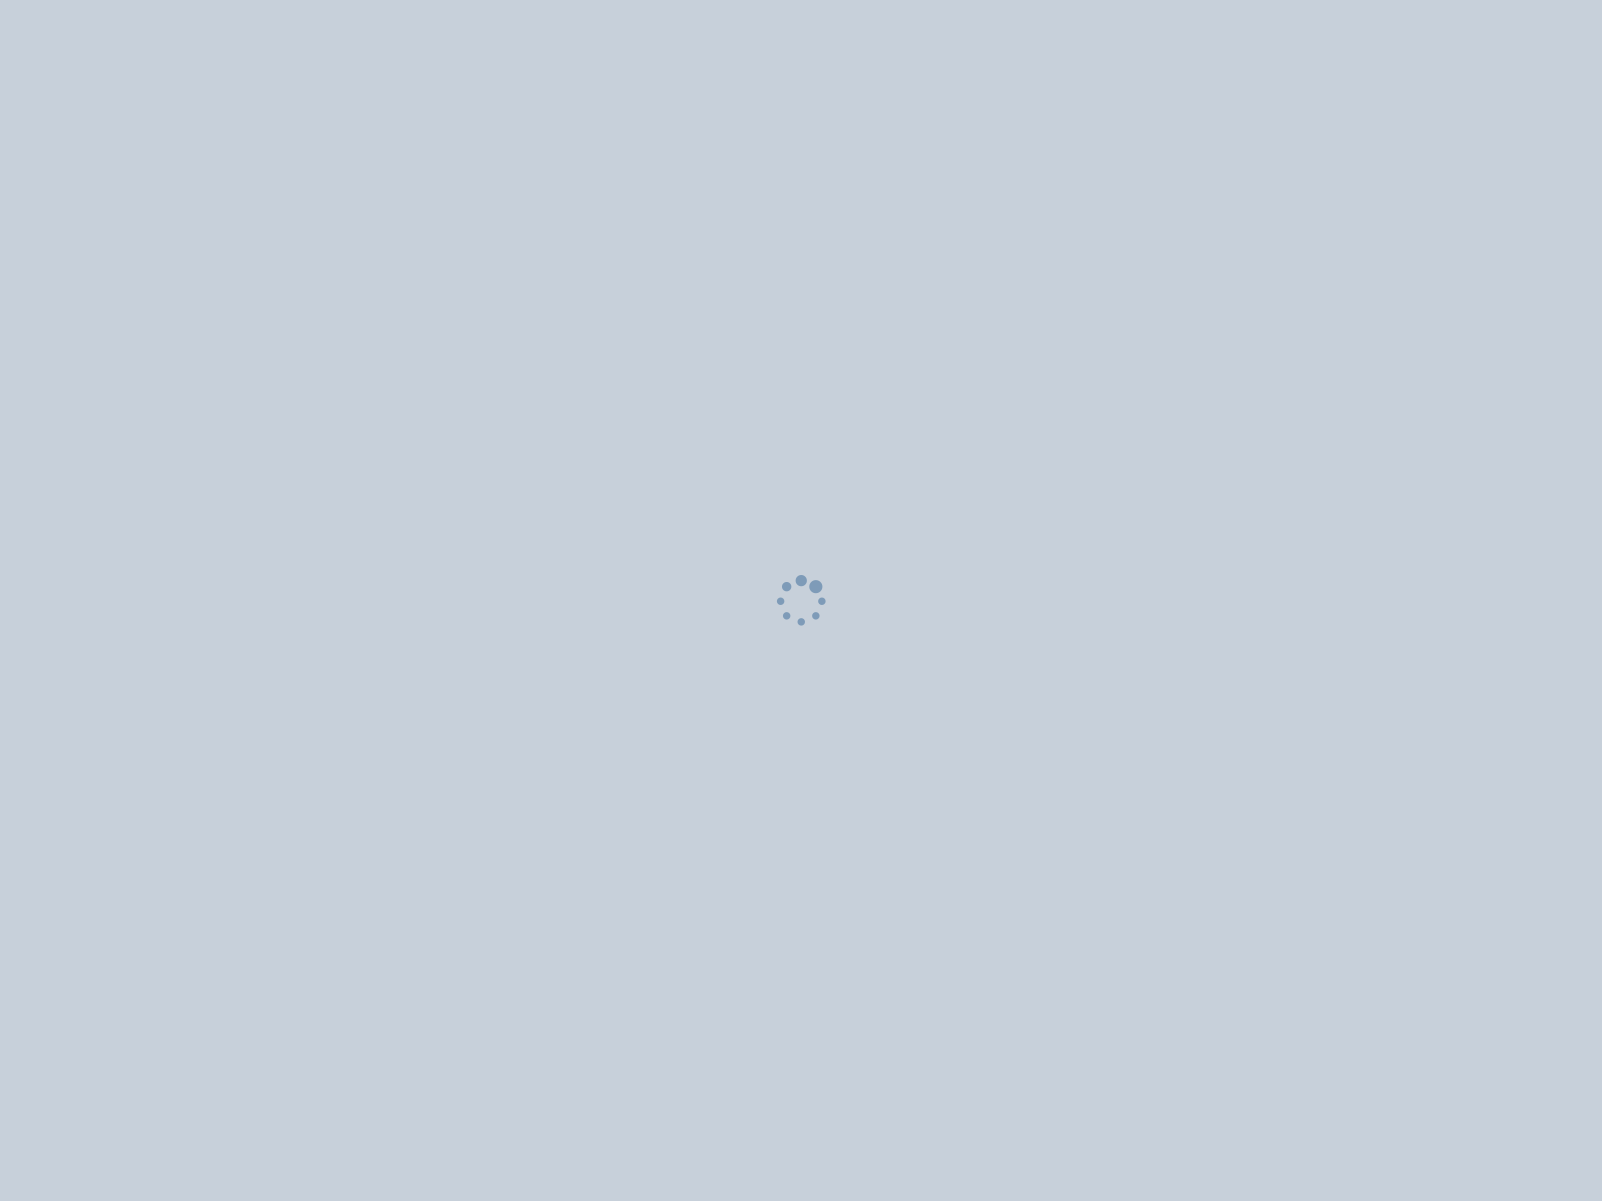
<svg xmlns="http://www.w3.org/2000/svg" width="1602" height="1201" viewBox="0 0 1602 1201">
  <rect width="100%" height="100%" fill="#c7d0da"/>
  <image x="776" y="575" width="50" height="51" href="img1.png"/>
</svg>
